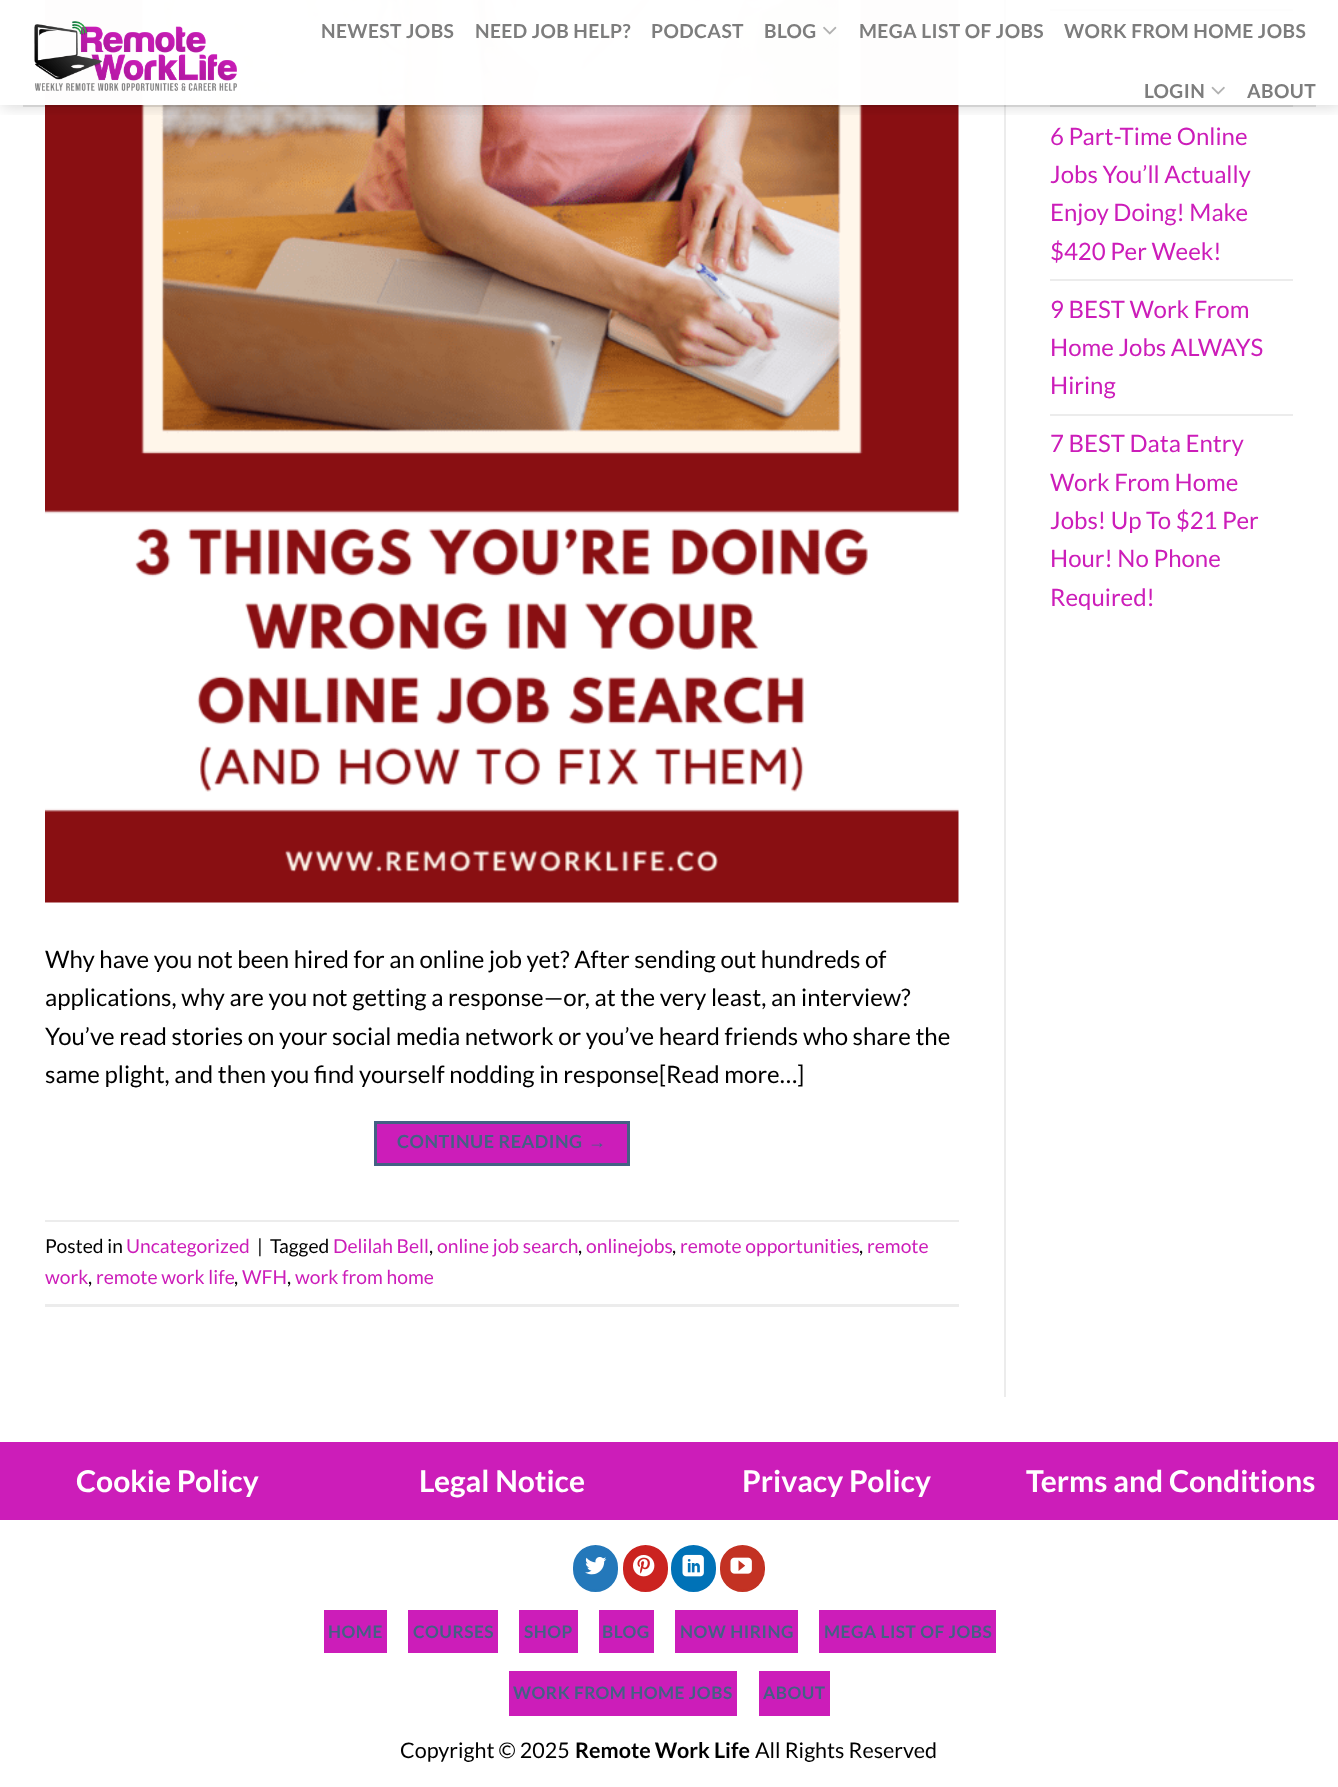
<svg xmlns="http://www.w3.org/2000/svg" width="1338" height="1787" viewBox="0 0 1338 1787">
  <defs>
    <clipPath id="clip1"><rect x="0" y="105" width="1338" height="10"/></clipPath>
    <filter id="blur1" x="-50%" y="-200%" width="200%" height="500%"><feGaussianBlur stdDeviation="7.5"/></filter>
  </defs>
  <rect width="100%" height="100%" fill="#ffffff"/>
  <rect x="1004" y="0" width="2" height="1397" fill="#ececec"/>
  <rect x="1050" y="9" width="243" height="2" fill="#ececec"/>
  <rect x="1050" y="105" width="243" height="2" fill="#ececec"/>
  <image x="45" y="0" width="914" height="903" href="img4.png"/>
  <g clip-path="url(#clip1)">
    <rect x="2" y="2" width="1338" height="105" fill="#000000" fill-opacity="0.15" filter="url(#blur1)"/>
  </g>
  <rect x="45" y="0" width="1248" height="105" fill="#ffffff" fill-opacity="0.9"/>
  <rect x="45" y="0" width="914" height="105" fill="#ffffff" fill-opacity="0.9"/>
  <image x="34" y="21" width="203" height="70" href="img1.png"/>
  <text x="321" y="38" font-family="Lato" font-size="19.25" font-weight="bold" letter-spacing="0.4" fill="#7d7d7d">NEWEST JOBS</text>
  <text x="475" y="38" font-family="Lato" font-size="19.25" font-weight="bold" letter-spacing="0.4" fill="#7d7d7d">NEED JOB HELP?</text>
  <text x="651" y="38" font-family="Lato" font-size="19.25" font-weight="bold" letter-spacing="0.4" fill="#7d7d7d">PODCAST</text>
  <text x="764" y="38" font-family="Lato" font-size="19.25" font-weight="bold" letter-spacing="0.4" fill="#7d7d7d">BLOG</text>
  <image x="823" y="26" width="14" height="9" href="img2.png"/>
  <text x="859" y="38" font-family="Lato" font-size="19.25" font-weight="bold" letter-spacing="0.4" fill="#7d7d7d">MEGA LIST OF JOBS</text>
  <text x="1064" y="38" font-family="Lato" font-size="19.25" font-weight="bold" letter-spacing="0.4" fill="#7d7d7d">WORK FROM HOME JOBS</text>
  <text x="1144" y="98" font-family="Lato" font-size="19.25" font-weight="bold" letter-spacing="0.4" fill="#7d7d7d">LOGIN</text>
  <image x="1211" y="86" width="14" height="9" href="img3.png"/>
  <text x="1247" y="98" font-family="Lato" font-size="19.25" font-weight="bold" letter-spacing="0.4" fill="#7d7d7d">ABOUT</text>
  <rect x="23" y="105" width="1293" height="2" fill="#000000" fill-opacity="0.1"/>
  <text x="1050" y="145" font-family="Lato" font-size="24" fill="#cc1db9">6 Part-Time Online</text>
  <text x="1050" y="183" font-family="Lato" font-size="24" fill="#cc1db9">Jobs You’ll Actually</text>
  <text x="1050" y="221" font-family="Lato" font-size="24" fill="#cc1db9">Enjoy Doing! Make</text>
  <text x="1050" y="260" font-family="Lato" font-size="24" fill="#cc1db9">$420 Per Week!</text>
  <rect x="1050" y="279" width="243" height="2" fill="#ececec"/>
  <text x="1050" y="318" font-family="Lato" font-size="24" fill="#cc1db9">9 BEST Work From</text>
  <text x="1050" y="356" font-family="Lato" font-size="24" fill="#cc1db9">Home Jobs ALWAYS</text>
  <text x="1050" y="394" font-family="Lato" font-size="24" fill="#cc1db9">Hiring</text>
  <rect x="1050" y="414" width="243" height="2" fill="#ececec"/>
  <text x="1050" y="452" font-family="Lato" font-size="24" fill="#cc1db9">7 BEST Data Entry</text>
  <text x="1050" y="491" font-family="Lato" font-size="24" fill="#cc1db9">Work From Home</text>
  <text x="1050" y="529" font-family="Lato" font-size="24" fill="#cc1db9">Jobs! Up To $21 Per</text>
  <text x="1050" y="567" font-family="Lato" font-size="24" fill="#cc1db9">Hour! No Phone</text>
  <text x="1050" y="606" font-family="Lato" font-size="24" fill="#cc1db9">Required!</text>
  <text x="45" y="968" font-family="Lato" font-size="24" fill="#000000">Why have you not been hired for an online job yet? After sending out hundreds of</text>
  <text x="45" y="1006" font-family="Lato" font-size="24" fill="#000000">applications, why are you not getting a response—or, at the very least, an interview?</text>
  <text x="45" y="1045" font-family="Lato" font-size="24" fill="#000000">You’ve read stories on your social media network or you’ve heard friends who share the</text>
  <text x="45" y="1083" font-family="Lato" font-size="24" fill="#000000">same plight, and then you find yourself nodding in response[Read more…]</text>
  <rect x="375.5" y="1122.5" width="253" height="42" fill="#cc1db9" stroke="#446084" stroke-width="3"/>
  <text x="397" y="1148" font-family="Lato" font-size="18" font-weight="bold" letter-spacing="0.5" fill="#446084">CONTINUE READING</text>
  <text x="588" y="1148" font-family="Liberation Sans" font-size="18" font-weight="bold" letter-spacing="0.5" fill="#446084">→</text>
  <rect x="45" y="1220" width="914" height="2" fill="#ececec"/>
  <rect x="45" y="1304" width="914" height="3" fill="#ececec"/>
  <text x="45" y="1253" font-family="Lato" font-size="19.25" fill="#000000">Posted in</text>
  <text x="126" y="1253" font-family="Lato" font-size="19.25" fill="#cc1db9">Uncategorized</text>
  <text x="257" y="1253" font-family="Lato" font-size="19.25" fill="#000000">|</text>
  <text x="270" y="1253" font-family="Lato" font-size="19.25" fill="#000000">Tagged</text>
  <text x="333" y="1253" font-family="Lato" font-size="19.25" fill="#cc1db9">Delilah Bell</text>
  <text x="429" y="1253" font-family="Lato" font-size="19.25" fill="#000000">,</text>
  <text x="437" y="1253" font-family="Lato" font-size="19.25" fill="#cc1db9">online job search</text>
  <text x="578" y="1253" font-family="Lato" font-size="19.25" fill="#000000">,</text>
  <text x="586" y="1253" font-family="Lato" font-size="19.25" fill="#cc1db9">onlinejobs</text>
  <text x="672" y="1253" font-family="Lato" font-size="19.25" fill="#000000">,</text>
  <text x="680" y="1253" font-family="Lato" font-size="19.25" fill="#cc1db9">remote opportunities</text>
  <text x="859" y="1253" font-family="Lato" font-size="19.25" fill="#000000">,</text>
  <text x="867" y="1253" font-family="Lato" font-size="19.25" fill="#cc1db9">remote</text>
  <text x="45" y="1284" font-family="Lato" font-size="19.25" fill="#cc1db9">work</text>
  <text x="88" y="1284" font-family="Lato" font-size="19.25" fill="#000000">,</text>
  <text x="96" y="1284" font-family="Lato" font-size="19.25" fill="#cc1db9">remote work life</text>
  <text x="234" y="1284" font-family="Lato" font-size="19.25" fill="#000000">,</text>
  <text x="242" y="1284" font-family="Lato" font-size="19.25" fill="#cc1db9">WFH</text>
  <text x="287" y="1284" font-family="Lato" font-size="19.25" fill="#000000">,</text>
  <text x="295" y="1284" font-family="Lato" font-size="19.25" fill="#cc1db9">work from home</text>
  <rect x="0" y="1442" width="1338" height="78" fill="#cc1db9"/>
  <text x="76" y="1492" font-family="Lato" font-size="30" font-weight="bold" fill="#ffffff">Cookie Policy</text>
  <text x="419" y="1492" font-family="Lato" font-size="30" font-weight="bold" fill="#ffffff">Legal Notice</text>
  <text x="742" y="1492" font-family="Lato" font-size="30" font-weight="bold" fill="#ffffff">Privacy Policy</text>
  <text x="1026" y="1492" font-family="Lato" font-size="30" font-weight="bold" fill="#ffffff">Terms and Conditions</text>
  <rect x="574" y="1546" width="43" height="45" rx="21.5" fill="#2478ba" stroke="#2478ba" stroke-width="2"/>
  <image x="585" y="1557" width="22" height="18" href="img5.png"/>
  <rect x="624" y="1546" width="43" height="45" rx="21.5" fill="#cb2320" stroke="#cb2320" stroke-width="2"/>
  <image x="633" y="1555" width="22" height="22" href="img6.png"/>
  <rect x="672" y="1546" width="43" height="45" rx="21.5" fill="#0072b7" stroke="#0072b7" stroke-width="2"/>
  <image x="682" y="1554" width="22" height="23" href="img7.png"/>
  <rect x="721" y="1546" width="43" height="45" rx="21.5" fill="#c33223" stroke="#c33223" stroke-width="2"/>
  <image x="730" y="1557" width="22" height="17" href="img8.png"/>
  <rect x="324" y="1610" width="63" height="43" fill="#cc1db9"/>
  <text x="328" y="1638" font-family="Lato" font-size="17.25" font-weight="bold" letter-spacing="0.5" fill="#446084">HOME</text>
  <rect x="408" y="1610" width="90" height="43" fill="#cc1db9"/>
  <text x="413" y="1638" font-family="Lato" font-size="17.25" font-weight="bold" letter-spacing="0.5" fill="#446084">COURSES</text>
  <rect x="519" y="1610" width="59" height="43" fill="#cc1db9"/>
  <text x="524" y="1638" font-family="Lato" font-size="17.25" font-weight="bold" letter-spacing="0.5" fill="#446084">SHOP</text>
  <rect x="599" y="1610" width="55" height="43" fill="#cc1db9"/>
  <text x="602" y="1638" font-family="Lato" font-size="17.25" font-weight="bold" letter-spacing="0.5" fill="#446084">BLOG</text>
  <rect x="675" y="1610" width="123" height="43" fill="#cc1db9"/>
  <text x="680" y="1638" font-family="Lato" font-size="17.25" font-weight="bold" letter-spacing="0.5" fill="#446084">NOW HIRING</text>
  <rect x="819" y="1610" width="177" height="43" fill="#cc1db9"/>
  <text x="824" y="1638" font-family="Lato" font-size="17.25" font-weight="bold" letter-spacing="0.5" fill="#446084">MEGA LIST OF JOBS</text>
  <rect x="509" y="1671" width="228" height="45" fill="#cc1db9"/>
  <text x="513" y="1699" font-family="Lato" font-size="17.25" font-weight="bold" letter-spacing="0.5" fill="#446084">WORK FROM HOME JOBS</text>
  <rect x="759" y="1671" width="71" height="45" fill="#cc1db9"/>
  <text x="763" y="1699" font-family="Lato" font-size="17.25" font-weight="bold" letter-spacing="0.5" fill="#446084">ABOUT</text>
  <text x="400" y="1758" font-family="Lato" font-size="21.5" fill="#000000">Copyright © 2025</text>
  <text x="575" y="1758" font-family="Lato" font-size="21.5" font-weight="bold" fill="#000000">Remote Work Life</text>
  <text x="755" y="1758" font-family="Lato" font-size="21.5" fill="#000000">All Rights Reserved</text>
</svg>
